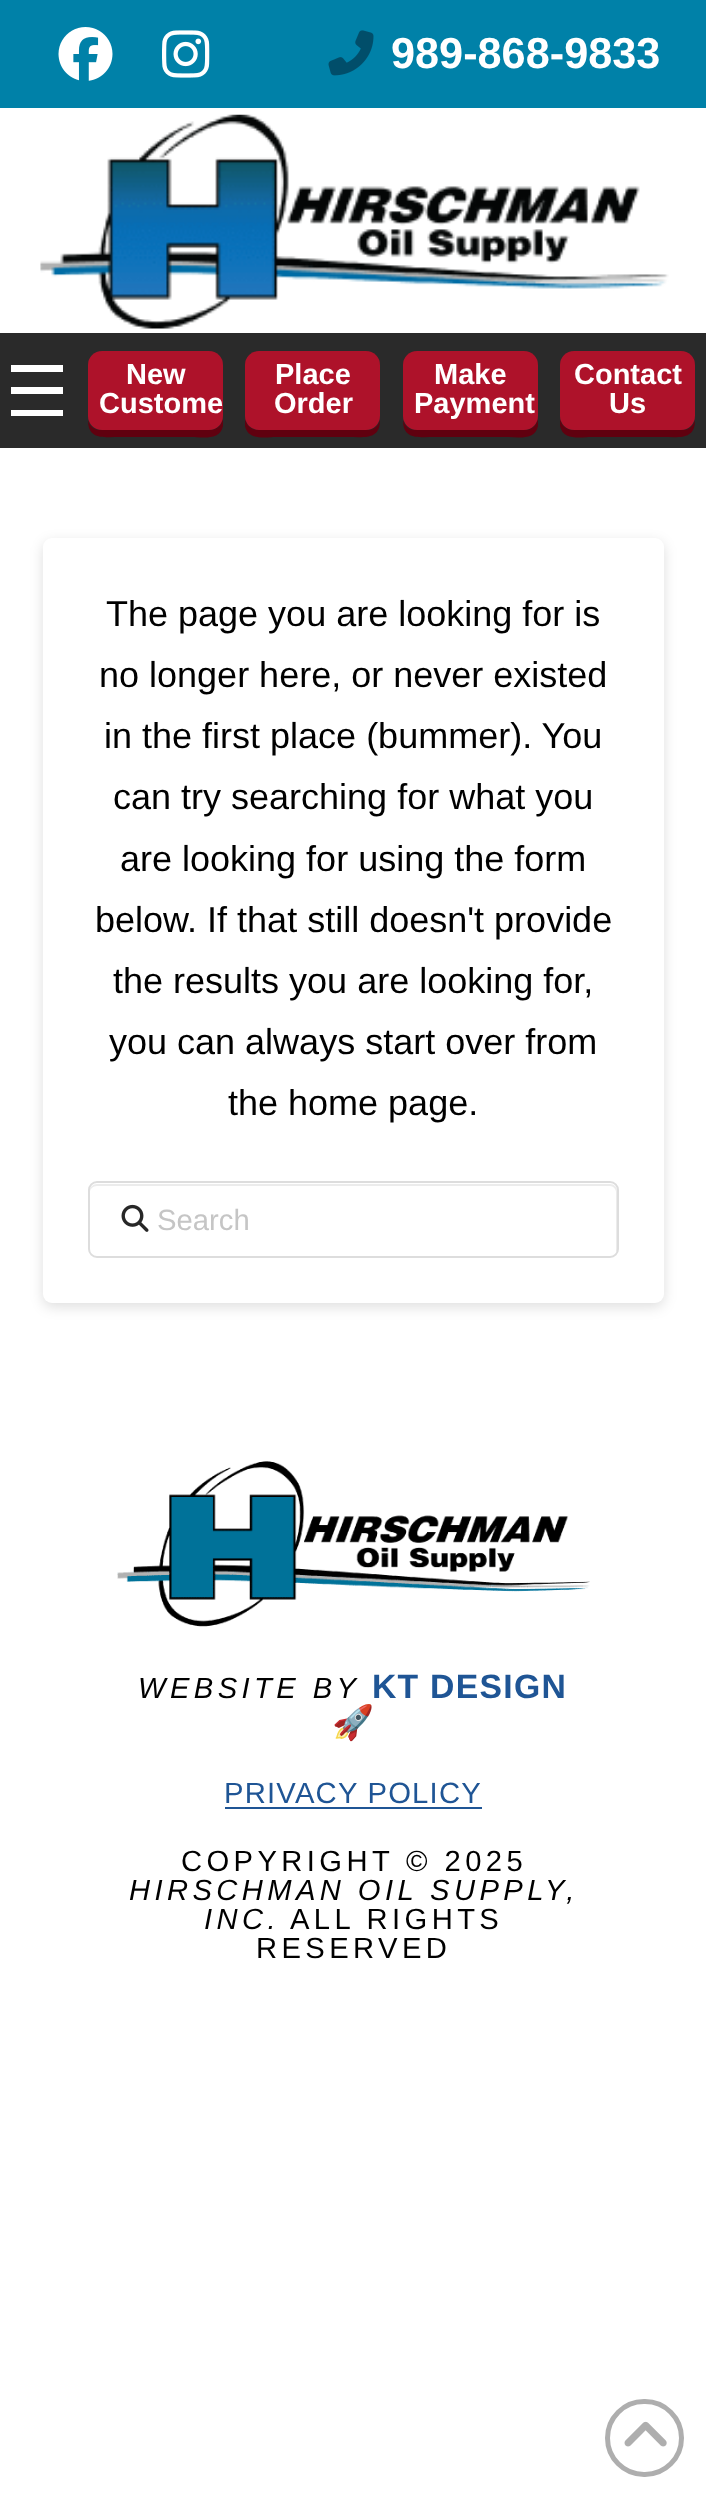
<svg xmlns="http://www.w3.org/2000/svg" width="706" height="2498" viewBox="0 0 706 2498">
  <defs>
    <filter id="blur1" x="-50%" y="-200%" width="200%" height="500%"><feGaussianBlur stdDeviation="6.5"/></filter>
  </defs>
  <rect width="100%" height="100%" fill="#ffffff"/>
  <rect x="0" y="0" width="706" height="108" fill="#0081a8"/>
  <image x="58" y="27" width="55" height="54" href="img1.png"/>
  <image x="162" y="30" width="48" height="48" href="img2.png"/>
  <image x="328" y="30" width="46" height="46" href="img3.png"/>
  <text x="391" y="68" font-family="Liberation Sans" font-size="43.25" font-weight="bold" fill="#ffffff">989-868-9833</text>
  <image x="40" y="114" width="629" height="215" href="img4.png"/>
  <rect x="0" y="333" width="706" height="115" fill="#2a2a2a"/>
  <rect x="11" y="365" width="52" height="7" fill="#ffffff"/>
  <rect x="11" y="387" width="52" height="7" fill="#ffffff"/>
  <rect x="11" y="410" width="52" height="6" fill="#ffffff"/>
  <path d="M88 420C88 440 103 437 120 437H191C202 437 220 441 223 426V369V417C223 424 217 430 210 430H100C94 430 89 425 88 420Z" fill="#60000f"/>
  <rect x="88" y="351" width="135" height="79" rx="14" fill="#ae122a"/>
  <text x="126" y="384" font-family="Liberation Sans" font-size="29" font-weight="bold" fill="#ffffff">New</text>
  <text x="99" y="413" font-family="Liberation Sans" font-size="29" font-weight="bold" fill="#ffffff">Custome</text>
  <path d="M245 369V426C248 441 266 437 277 437H348C365 437 380 440 380 420C379 425 374 430 368 430H258C251 430 245 424 245 417Z" fill="#60000f"/>
  <rect x="245" y="351" width="135" height="79" rx="14" fill="#ae122a"/>
  <text x="275" y="384" font-family="Liberation Sans" font-size="29" font-weight="bold" fill="#ffffff">Place</text>
  <text x="274" y="413" font-family="Liberation Sans" font-size="29" font-weight="bold" fill="#ffffff">Order</text>
  <path d="M403 420C403 440 418 437 435 437H506C517 437 535 441 538 426V369V417C538 424 532 430 525 430H415C409 430 404 425 403 420Z" fill="#60000f"/>
  <rect x="403" y="351" width="135" height="79" rx="14" fill="#ae122a"/>
  <text x="434" y="384" font-family="Liberation Sans" font-size="29" font-weight="bold" fill="#ffffff">Make</text>
  <text x="414" y="413" font-family="Liberation Sans" font-size="29" font-weight="bold" fill="#ffffff">Payment</text>
  <path d="M560 369V426C563 441 581 437 592 437H663C680 437 695 440 695 420C694 425 689 430 683 430H573C566 430 560 424 560 417Z" fill="#60000f"/>
  <rect x="560" y="351" width="135" height="79" rx="14" fill="#ae122a"/>
  <text x="574" y="384" font-family="Liberation Sans" font-size="29" font-weight="bold" fill="#ffffff">Contact</text>
  <text x="609" y="413" font-family="Liberation Sans" font-size="29" font-weight="bold" fill="#ffffff">Us</text>
  <rect x="43" y="542" width="621" height="765" rx="9" fill="#000000" fill-opacity="0.13" filter="url(#blur1)"/>
  <rect x="43" y="538" width="621" height="765" rx="9" fill="#ffffff"/>
  <text x="106" y="626" font-family="Liberation Sans" font-size="36" fill="#000000">The page you are looking for is</text>
  <text x="99" y="687" font-family="Liberation Sans" font-size="36" fill="#000000">no longer here, or never existed</text>
  <text x="104" y="748" font-family="Liberation Sans" font-size="36" fill="#000000">in the first place (bummer). You</text>
  <text x="113" y="809" font-family="Liberation Sans" font-size="36" fill="#000000">can try searching for what you</text>
  <text x="120" y="871" font-family="Liberation Sans" font-size="36" fill="#000000">are looking for using the form</text>
  <text x="95" y="932" font-family="Liberation Sans" font-size="36" fill="#000000">below. If that still doesn't provide</text>
  <text x="113" y="993" font-family="Liberation Sans" font-size="36" fill="#000000">the results you are looking for,</text>
  <text x="109" y="1054" font-family="Liberation Sans" font-size="36" fill="#000000">you can always start over from</text>
  <text x="228" y="1115" font-family="Liberation Sans" font-size="36" fill="#000000">the home page.</text>
  <path d="M97 1186H610C613 1186 616 1189 616 1192V1253C617 1252 617 1250 617 1249V1191C617 1187 614 1184 610 1184H97C93 1184 90 1187 90 1191V1192C90 1189 93 1186 97 1186Z" fill="#ececec"/>
  <rect x="89" y="1182" width="529" height="75" rx="8" fill="none" stroke="#dddddd" stroke-width="2"/>
  <image x="121" y="1204" width="28" height="28" href="img5.png"/>
  <text x="157" y="1230" font-family="Liberation Sans" font-size="29.25" fill="#c5c5c5">Search</text>
  <image x="117" y="1461" width="473" height="166" href="img6.png"/>
  <text x="138" y="1698" font-family="Liberation Sans" font-size="29.2" font-style="italic" letter-spacing="4.4" fill="#000000">WEBSITE BY</text>
  <text x="372" y="1698" font-family="Liberation Sans" font-size="33.75" font-weight="bold" letter-spacing="1.25" fill="#1f5595">KT DESIGN</text>
  <text x="332" y="1734" font-family="Noto Color Emoji" font-size="33.75" font-weight="bold" letter-spacing="1.25" fill="#1f5595">🚀</text>
  <text x="224" y="1803" font-family="Liberation Sans" font-size="29.25" letter-spacing="1.2" fill="#1f5595">PRIVACY POLICY</text>
  <rect x="225" y="1807" width="257" height="2" fill="#1f5595"/>
  <text x="181" y="1871" font-family="Liberation Sans" font-size="29.2" letter-spacing="4.4" fill="#000000">COPYRIGHT © 2025</text>
  <text x="129" y="1900" font-family="Liberation Sans" font-size="29.2" font-style="italic" letter-spacing="4.4" fill="#000000">HIRSCHMAN OIL SUPPLY,</text>
  <text x="204" y="1929" font-family="Liberation Sans" font-size="29.2" font-style="italic" letter-spacing="4.4" fill="#000000">INC.</text>
  <text x="290" y="1929" font-family="Liberation Sans" font-size="29.2" letter-spacing="4.4" fill="#000000">ALL RIGHTS</text>
  <text x="256" y="1958" font-family="Liberation Sans" font-size="29.2" letter-spacing="4.4" fill="#000000">RESERVED</text>
  <rect x="607.5" y="2401.5" width="74" height="73" rx="36.5" fill="none" stroke="#aeaeae" stroke-width="5"/>
  <image x="624" y="2421" width="43" height="26" href="img7.png"/>
</svg>
